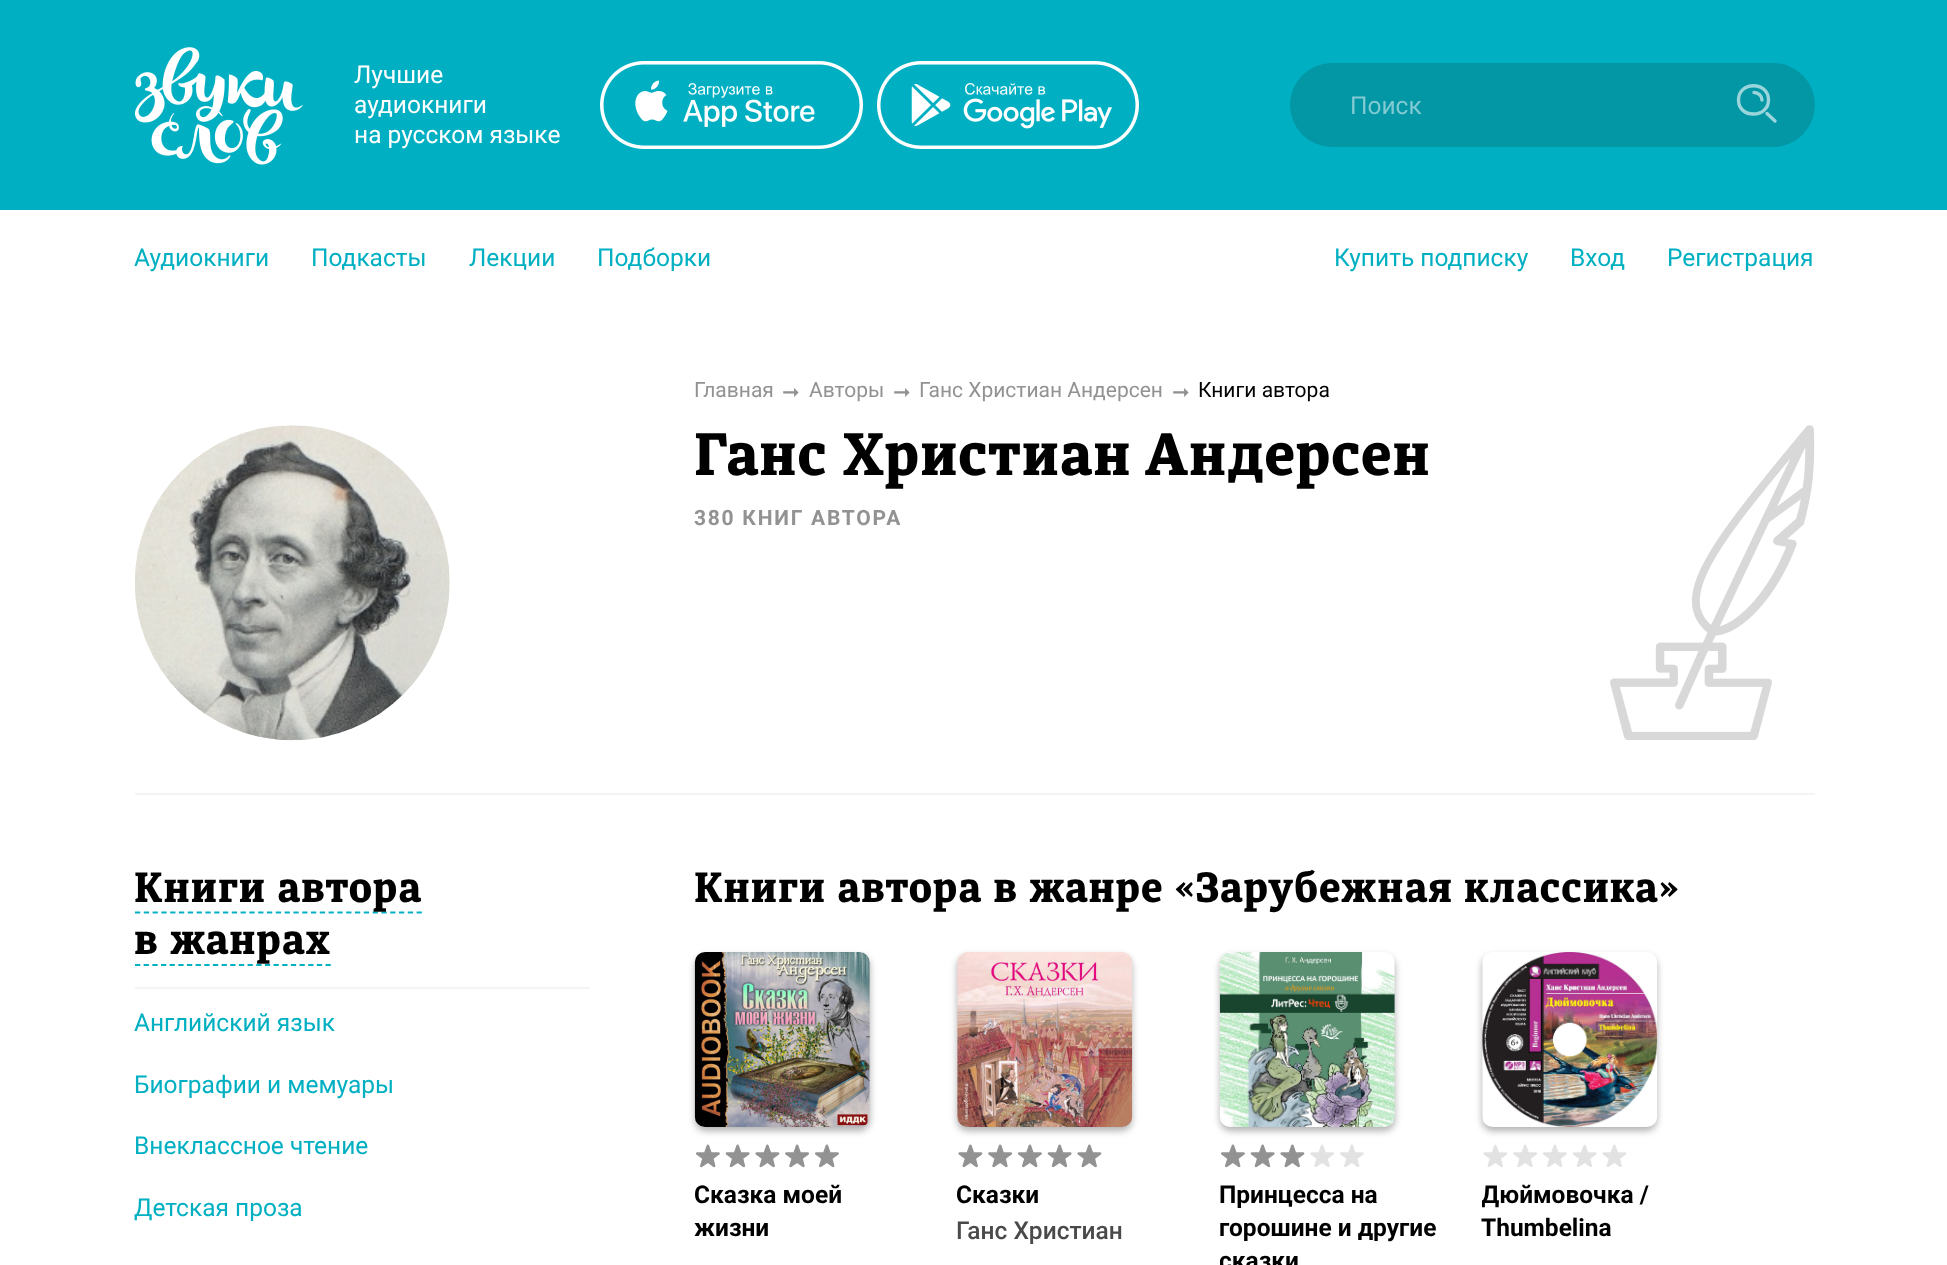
<svg xmlns="http://www.w3.org/2000/svg" width="1947" height="1265" viewBox="0 0 1947 1265">
  <defs>
    <filter id="blur1" x="-50%" y="-200%" width="200%" height="500%"><feGaussianBlur stdDeviation="3.5"/></filter>
    <clipPath id="clip1"><rect x="1220" y="1178" width="227" height="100"/></clipPath>
    <clipPath id="clip2"><rect x="1482" y="1178" width="228" height="66"/></clipPath>
  </defs>
  <rect width="100%" height="100%" fill="#ffffff"/>
  <rect x="0" y="0" width="1947" height="210" fill="#00b0c2"/>
  <image x="135" y="47" width="168" height="118" href="img1.png"/>
  <text x="354" y="83" font-family="Roboto" font-size="24.5" fill="#ffffff">Лучшие</text>
  <text x="354" y="113" font-family="Roboto" font-size="24.5" fill="#ffffff">аудиокниги</text>
  <text x="354" y="143" font-family="Roboto" font-size="24.5" fill="#ffffff">на русском языке</text>
  <image x="600" y="61" width="263" height="88" href="img2.png"/>
  <image x="877" y="61" width="262" height="88" href="img3.png"/>
  <rect x="1290" y="63" width="525" height="84" rx="42" fill="#0396a5"/>
  <text x="1350" y="114" font-family="Roboto" font-size="24.5" fill="#81cad2">Поиск</text>
  <path d="M1768.5 100C1768.5 118.5 1738.5 119 1738.5 100C1738.5 81 1768.5 81 1768.5 100Z" fill="none" stroke="#9ad5db" stroke-width="3.4"/>
  <path d="M1767 113.5L1775 121M1754 92.5C1758.5 92.5 1762 96 1762 100" fill="none" stroke="#9ad5db" stroke-width="3.4" stroke-linecap="round"/>
  <text x="134" y="266" font-family="Roboto" font-size="24.5" fill="#00b0c2">Аудиокниги</text>
  <text x="311" y="266" font-family="Roboto" font-size="24.5" fill="#00b0c2">Подкасты</text>
  <text x="469" y="266" font-family="Roboto" font-size="24.5" fill="#00b0c2">Лекции</text>
  <text x="597" y="266" font-family="Roboto" font-size="24.5" fill="#00b0c2">Подборки</text>
  <text x="1334" y="266" font-family="Roboto" font-size="24.5" fill="#00b0c2">Купить подписку</text>
  <text x="1570" y="266" font-family="Roboto" font-size="24.5" fill="#00b0c2">Вход</text>
  <text x="1667" y="266" font-family="Roboto" font-size="24.5" fill="#00b0c2">Регистрация</text>
  <text x="694" y="397" font-family="Roboto" font-size="21" fill="#929292">Главная</text>
  <text x="782" y="399" font-family="DejaVu Sans" font-size="21" fill="#929292">➞</text>
  <text x="809" y="397" font-family="Roboto" font-size="21" fill="#929292">Авторы</text>
  <text x="893" y="399" font-family="DejaVu Sans" font-size="21" fill="#929292">➞</text>
  <text x="919" y="397" font-family="Roboto" font-size="21" fill="#929292">Ганс Христиан Андерсен</text>
  <text x="1172" y="399" font-family="DejaVu Sans" font-size="21" fill="#929292">➞</text>
  <text x="1198" y="397" font-family="Roboto" font-size="21" fill="#000000">Книги автора</text>
  <rect x="135" y="793" width="1680" height="2" fill="#f4f4f4"/>
  <image x="135" y="425" width="315" height="316" href="img4.png"/>
  <text x="694" y="475" font-family="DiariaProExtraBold" font-size="59.5" font-weight="800" letter-spacing="1.05" fill="#000000">Ганс Христиан Андерсен</text>
  <image x="1610" y="425" width="205" height="315" href="img5.png"/>
  <text x="694" y="525" font-family="Roboto" font-size="21" font-weight="bold" letter-spacing="1.75" fill="#929292">380 КНИГ АВТОРА</text>
  <rect x="135" y="987" width="455" height="2" fill="#f4f4f4"/>
  <path d="M135 912.5H422" fill="none" stroke="#00b0c2" stroke-width="1.8" stroke-dasharray="5.25 3.55"/>
  <text x="134" y="902" font-family="DiariaProExtraBold" font-size="42" font-weight="800" letter-spacing="1.05" fill="#000000">Книги автора</text>
  <text x="134" y="954" font-family="DiariaProExtraBold" font-size="42" font-weight="800" letter-spacing="1.05" fill="#000000">в жанрах</text>
  <path d="M135 965H331" fill="none" stroke="#00b0c2" stroke-width="1.8" stroke-dasharray="5.25 3.41"/>
  <text x="134" y="1031" font-family="Roboto" font-size="24.5" fill="#00b0c2">Английский язык</text>
  <text x="134" y="1093" font-family="Roboto" font-size="24.5" fill="#00b0c2">Биографии и мемуары</text>
  <text x="134" y="1154" font-family="Roboto" font-size="24.5" fill="#00b0c2">Внеклассное чтение</text>
  <text x="134" y="1216" font-family="Roboto" font-size="24.5" fill="#00b0c2">Детская проза</text>
  <text x="694" y="902" font-family="DiariaProExtraBold" font-size="42" font-weight="800" letter-spacing="1.05" fill="#000000">Книги автора в жанре «Зарубежная классика»</text>
  <rect x="695" y="956" width="175" height="175" rx="11" fill="#000000" fill-opacity="0.3" filter="url(#blur1)"/>
  <image x="694" y="952" width="176" height="175" href="img6.png"/>
  <image x="696" y="1144" width="24" height="23" href="img7.png"/>
  <image x="725" y="1144" width="25" height="23" href="img8.png"/>
  <image x="755" y="1144" width="25" height="23" href="img9.png"/>
  <image x="785" y="1144" width="24" height="23" href="img10.png"/>
  <image x="815" y="1144" width="24" height="23" href="img7.png"/>
  <image x="696" y="1144" width="24" height="24" href="img11.png"/>
  <image x="725" y="1144" width="25" height="24" href="img12.png"/>
  <image x="755" y="1144" width="25" height="24" href="img13.png"/>
  <image x="785" y="1144" width="24" height="24" href="img14.png"/>
  <image x="815" y="1144" width="24" height="24" href="img11.png"/>
  <text x="694" y="1203" font-family="Roboto" font-size="24.5" font-weight="bold" fill="#000000">Сказка моей</text>
  <text x="694" y="1236" font-family="Roboto" font-size="24.5" font-weight="bold" fill="#000000">жизни</text>
  <rect x="957" y="956" width="175" height="175" rx="11" fill="#000000" fill-opacity="0.3" filter="url(#blur1)"/>
  <image x="957" y="952" width="176" height="175" href="img15.png"/>
  <image x="958" y="1144" width="25" height="23" href="img9.png"/>
  <image x="988" y="1144" width="24" height="23" href="img10.png"/>
  <image x="1018" y="1144" width="24" height="23" href="img7.png"/>
  <image x="1047" y="1144" width="25" height="23" href="img8.png"/>
  <image x="1077" y="1144" width="25" height="23" href="img9.png"/>
  <image x="958" y="1144" width="25" height="24" href="img13.png"/>
  <image x="988" y="1144" width="24" height="24" href="img14.png"/>
  <image x="1018" y="1144" width="24" height="24" href="img11.png"/>
  <image x="1047" y="1144" width="25" height="24" href="img12.png"/>
  <image x="1077" y="1144" width="25" height="24" href="img13.png"/>
  <text x="956" y="1203" font-family="Roboto" font-size="24.5" font-weight="bold" fill="#000000">Сказки</text>
  <text x="956" y="1239" font-family="Roboto" font-size="24.5" font-weight="500" fill="#4a4a4a">Ганс Христиан</text>
  <rect x="1220" y="956" width="175" height="175" rx="11" fill="#000000" fill-opacity="0.3" filter="url(#blur1)"/>
  <image x="1219" y="952" width="176" height="175" href="img16.png"/>
  <image x="1221" y="1144" width="24" height="23" href="img7.png"/>
  <image x="1250" y="1144" width="25" height="23" href="img8.png"/>
  <image x="1280" y="1144" width="25" height="23" href="img9.png"/>
  <image x="1310" y="1144" width="24" height="23" href="img10.png"/>
  <image x="1340" y="1144" width="24" height="23" href="img7.png"/>
  <image x="1221" y="1144" width="24" height="24" href="img11.png"/>
  <image x="1250" y="1144" width="25" height="24" href="img12.png"/>
  <image x="1280" y="1144" width="25" height="24" href="img13.png"/>
  <text x="1219" y="1203" font-family="Roboto" font-size="24.5" font-weight="bold" fill="#000000">Принцесса на</text>
  <text x="1219" y="1236" font-family="Roboto" font-size="24.5" font-weight="bold" fill="#000000">горошине и другие</text>
  <g clip-path="url(#clip1)">
    <text x="1219" y="1269" font-family="Roboto" font-size="24.5" font-weight="bold" fill="#000000">сказки</text>
  </g>
  <rect x="1482" y="956" width="175" height="175" rx="11" fill="#000000" fill-opacity="0.3" filter="url(#blur1)"/>
  <image x="1482" y="952" width="176" height="175" href="img17.png"/>
  <image x="1483" y="1144" width="25" height="23" href="img9.png"/>
  <image x="1513" y="1144" width="24" height="23" href="img10.png"/>
  <image x="1543" y="1144" width="24" height="23" href="img7.png"/>
  <image x="1572" y="1144" width="25" height="23" href="img8.png"/>
  <image x="1602" y="1144" width="25" height="23" href="img9.png"/>
  <g clip-path="url(#clip2)">
    <text x="1481" y="1203" font-family="Roboto" font-size="24.5" font-weight="bold" fill="#000000">Дюймовочка /</text>
  </g>
  <text x="1481" y="1236" font-family="Roboto" font-size="24.5" font-weight="bold" fill="#000000">Thumbelina</text>
</svg>
